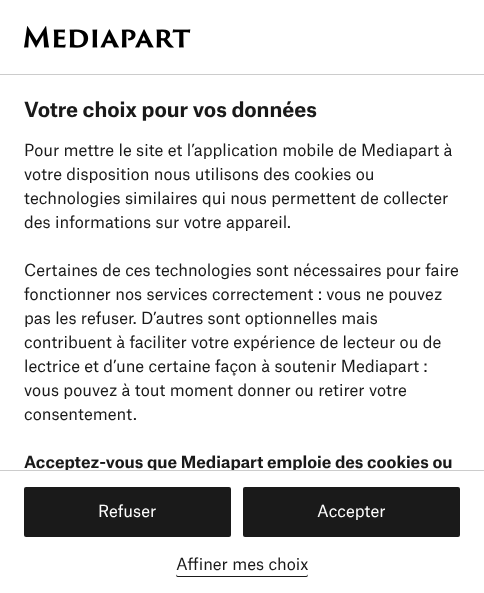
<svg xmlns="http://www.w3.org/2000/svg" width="484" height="593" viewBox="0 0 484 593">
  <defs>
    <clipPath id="clip1"><rect x="0" y="75" width="484" height="395"/></clipPath>
  </defs>
  <rect width="100%" height="100%" fill="#ffffff"/>
  <rect x="0" y="74" width="484" height="1" fill="#cccccc"/>
  <image x="24" y="26" width="167" height="22" href="img1.png"/>
  <text x="24" y="117" font-family="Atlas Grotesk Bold" font-size="20" font-weight="bold" fill="#1a1a1a">Votre choix pour vos données</text>
  <text x="24" y="156" font-family="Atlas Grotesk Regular" font-size="16" fill="#1a1a1a">Pour mettre le site et l’application mobile de Mediapart à</text>
  <text x="24" y="180" font-family="Atlas Grotesk Regular" font-size="16" fill="#1a1a1a">votre disposition nous utilisons des cookies ou</text>
  <text x="24" y="204" font-family="Atlas Grotesk Regular" font-size="16" fill="#1a1a1a">technologies similaires qui nous permettent de collecter</text>
  <text x="24" y="228" font-family="Atlas Grotesk Regular" font-size="16" fill="#1a1a1a">des informations sur votre appareil.</text>
  <text x="24" y="276" font-family="Atlas Grotesk Regular" font-size="16" fill="#1a1a1a">Certaines de ces technologies sont nécessaires pour faire</text>
  <text x="24" y="300" font-family="Atlas Grotesk Regular" font-size="16" fill="#1a1a1a">fonctionner nos services correctement : vous ne pouvez</text>
  <text x="24" y="324" font-family="Atlas Grotesk Regular" font-size="16" fill="#1a1a1a">pas les refuser. D’autres sont optionnelles mais</text>
  <text x="24" y="348" font-family="Atlas Grotesk Regular" font-size="16" fill="#1a1a1a">contribuent à faciliter votre expérience de lecteur ou de</text>
  <text x="24" y="372" font-family="Atlas Grotesk Regular" font-size="16" fill="#1a1a1a">lectrice et d’une certaine façon à soutenir Mediapart :</text>
  <text x="24" y="396" font-family="Atlas Grotesk Regular" font-size="16" fill="#1a1a1a">vous pouvez à tout moment donner ou retirer votre</text>
  <text x="24" y="420" font-family="Atlas Grotesk Regular" font-size="16" fill="#1a1a1a">consentement.</text>
  <g clip-path="url(#clip1)">
    <text x="24" y="468" font-family="Atlas Grotesk Bold" font-size="16" font-weight="bold" fill="#1a1a1a">Acceptez-vous que Mediapart emploie des cookies ou</text>
  </g>
  <rect x="0" y="470" width="484" height="1" fill="#cccccc"/>
  <rect x="24" y="487" width="207" height="50" rx="2" fill="#1a1a1a"/>
  <text x="98" y="517" font-family="Atlas Grotesk Regular" font-size="16" fill="#ffffff">Refuser</text>
  <rect x="243" y="487" width="217" height="50" rx="2" fill="#1a1a1a"/>
  <text x="317" y="517" font-family="Atlas Grotesk Regular" font-size="16" fill="#ffffff">Accepter</text>
  <path d="M176 574C176 575 176 577 178 577H306C308 577 308 575 308 574C308 575 307 576 306 576H178C177 576 176 575 176 574Z" fill="#1a1a1a"/>
  <text x="176" y="570" font-family="Atlas Grotesk Regular" font-size="16" fill="#1a1a1a">Affiner mes choix</text>
</svg>
